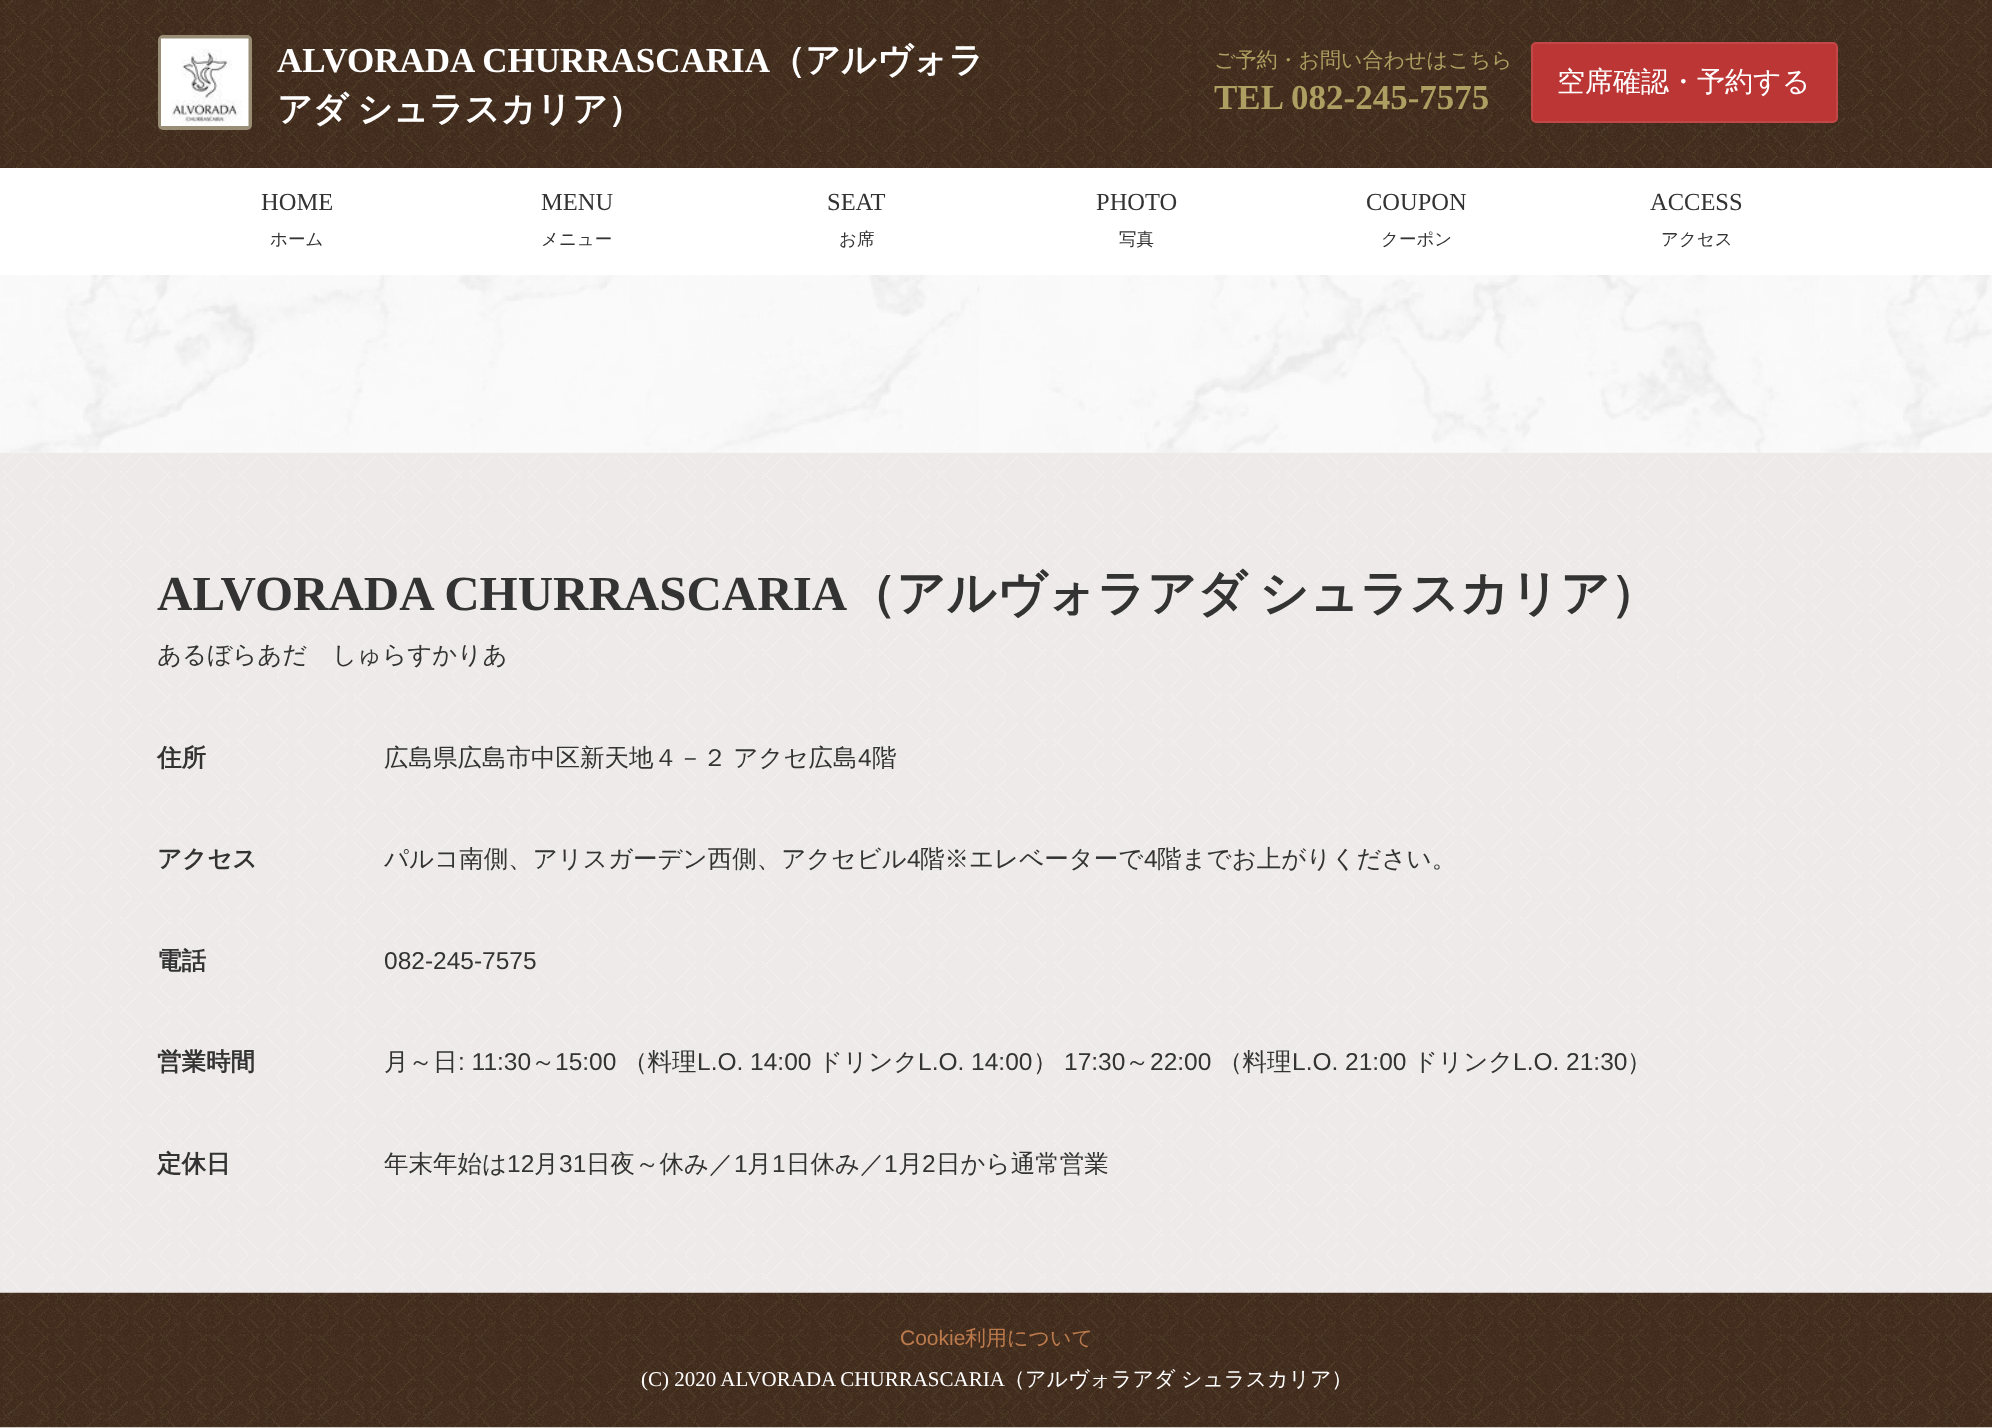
<svg xmlns="http://www.w3.org/2000/svg" width="1992" height="1428" viewBox="0 0 1992 1428">
  <rect width="100%" height="100%" fill="#ffffff"/>
  <image x="0" y="0" width="1992" height="168" href="img1.png"/>
  <rect x="160" y="37" width="90" height="91" rx="3" fill="none" stroke="#9a8d76" stroke-width="4"/>
  <image x="161" y="38" width="88" height="88" href="img2.png"/>
  <text x="277" y="72" font-family="Liberation Serif" font-size="35" font-weight="bold" fill="#ffffff">ALVORADA CHURRASCARIA</text>
  <text x="770" y="72" font-family="WenQuanYi Zen Hei" font-size="35" font-weight="bold" fill="#ffffff">（アルヴォラ</text>
  <text x="277" y="121" word-spacing="-2" font-family="WenQuanYi Zen Hei" font-size="35" font-weight="bold" fill="#ffffff">アダ シュラスカリア）</text>
  <text x="1214" y="67" font-family="WenQuanYi Zen Hei" font-size="21" font-weight="500" fill="#ad9e61">ご予約・お問い合わせはこちら</text>
  <text x="1214" y="109" font-family="Liberation Serif" font-size="35" font-weight="bold" fill="#ad9e61">TEL</text>
  <text x="1291" y="109" font-family="Liberation Serif" font-size="35" font-weight="bold" fill="#ad9e61">082-245-7575</text>
  <rect x="1532" y="43" width="305" height="79" rx="4" fill="#bd3636" stroke="#c34747" stroke-width="2"/>
  <text x="1557" y="91" font-family="WenQuanYi Zen Hei" font-size="28" font-weight="500" fill="#ffffff">空席確認・予約する</text>
  <text x="261" y="210" font-family="Liberation Serif" font-size="24.5" fill="#333333">HOME</text>
  <text x="270" y="245" font-family="WenQuanYi Zen Hei" font-size="17.5" font-weight="500" fill="#333333">ホーム</text>
  <text x="541" y="210" font-family="Liberation Serif" font-size="24.5" fill="#333333">MENU</text>
  <text x="541" y="245" font-family="WenQuanYi Zen Hei" font-size="17.5" font-weight="500" fill="#333333">メニュー</text>
  <text x="827" y="210" font-family="Liberation Serif" font-size="24.5" fill="#333333">SEAT</text>
  <text x="839" y="245" font-family="WenQuanYi Zen Hei" font-size="17.5" font-weight="500" fill="#333333">お席</text>
  <text x="1096" y="210" font-family="Liberation Serif" font-size="24.5" fill="#333333">PHOTO</text>
  <text x="1119" y="245" font-family="WenQuanYi Zen Hei" font-size="17.5" font-weight="500" fill="#333333">写真</text>
  <text x="1366" y="210" font-family="Liberation Serif" font-size="24.5" fill="#333333">COUPON</text>
  <text x="1381" y="245" font-family="WenQuanYi Zen Hei" font-size="17.5" font-weight="500" fill="#333333">クーポン</text>
  <text x="1650" y="210" font-family="Liberation Serif" font-size="24.5" fill="#333333">ACCESS</text>
  <text x="1661" y="245" font-family="WenQuanYi Zen Hei" font-size="17.5" font-weight="500" fill="#333333">アクセス</text>
  <image x="0" y="275" width="1992" height="178" href="img3.png"/>
  <image x="0" y="452" width="1992" height="841" href="img4.png"/>
  <text x="157" y="610" font-family="Liberation Serif" font-size="49" font-weight="bold" fill="#333333">ALVORADA CHURRASCARIA</text>
  <text x="847" y="610" font-family="WenQuanYi Zen Hei" font-size="49" font-weight="bold" fill="#333333">（アルヴォラアダ</text>
  <text x="1259" y="610" font-family="WenQuanYi Zen Hei" font-size="49" font-weight="bold" fill="#333333">シュラスカリア）</text>
  <text x="157" y="663" font-family="WenQuanYi Zen Hei" font-size="24.5" font-weight="500" fill="#333333">あるぼらあだ　しゅらすかりあ</text>
  <text x="157" y="766" font-family="WenQuanYi Zen Hei" font-size="24.5" font-weight="bold" fill="#333333">住所</text>
  <text x="384" y="766" word-spacing="-1" font-family="WenQuanYi Zen Hei" font-size="24.5" font-weight="500" fill="#333333">広島県広島市中区新天地４－２ アクセ広島</text>
  <text x="858" y="766" font-family="Liberation Sans" font-size="24.5" fill="#333333">4</text>
  <text x="872" y="766" font-family="WenQuanYi Zen Hei" font-size="24.5" font-weight="500" fill="#333333">階</text>
  <text x="157" y="867" font-family="WenQuanYi Zen Hei" font-size="24.5" font-weight="bold" fill="#333333">アクセス</text>
  <text x="384" y="867" font-family="WenQuanYi Zen Hei" font-size="24.5" font-weight="500" fill="#333333">パルコ南側、アリスガーデン西側、アクセビル</text>
  <text x="907" y="867" font-family="Liberation Sans" font-size="24.5" fill="#333333">4</text>
  <text x="920" y="867" font-family="WenQuanYi Zen Hei" font-size="24.5" font-weight="500" fill="#333333">階※エレベーターで</text>
  <text x="1144" y="867" font-family="Liberation Sans" font-size="24.5" fill="#333333">4</text>
  <text x="1157" y="867" font-family="WenQuanYi Zen Hei" font-size="24.5" font-weight="500" fill="#333333">階までお上がりください。</text>
  <text x="157" y="969" font-family="WenQuanYi Zen Hei" font-size="24.5" font-weight="bold" fill="#333333">電話</text>
  <text x="384" y="969" font-family="Liberation Sans" font-size="24.5" fill="#333333">082-245-7575</text>
  <text x="157" y="1070" font-family="WenQuanYi Zen Hei" font-size="24.5" font-weight="bold" fill="#333333">営業時間</text>
  <text x="384" y="1070" font-family="WenQuanYi Zen Hei" font-size="24.5" font-weight="500" fill="#333333">月～日</text>
  <text x="458" y="1070" font-family="Liberation Sans" font-size="24.5" fill="#333333">: 11:30</text>
  <text x="531" y="1070" font-family="WenQuanYi Zen Hei" font-size="24.5" font-weight="500" fill="#333333">～</text>
  <text x="555" y="1070" font-family="Liberation Sans" font-size="24.5" fill="#333333">15:00</text>
  <text x="623" y="1070" font-family="WenQuanYi Zen Hei" font-size="24.5" font-weight="500" fill="#333333">（料理</text>
  <text x="697" y="1070" font-family="Liberation Sans" font-size="24.5" fill="#333333">L.O. 14:00</text>
  <text x="818" y="1070" font-family="WenQuanYi Zen Hei" font-size="24.5" font-weight="500" fill="#333333">ドリンク</text>
  <text x="918" y="1070" font-family="Liberation Sans" font-size="24.5" fill="#333333">L.O. 14:00</text>
  <text x="1033" y="1070" font-family="WenQuanYi Zen Hei" font-size="24.5" font-weight="500" fill="#333333">）</text>
  <text x="1064" y="1070" font-family="Liberation Sans" font-size="24.5" fill="#333333">17:30</text>
  <text x="1125" y="1070" font-family="WenQuanYi Zen Hei" font-size="24.5" font-weight="500" fill="#333333">～</text>
  <text x="1150" y="1070" font-family="Liberation Sans" font-size="24.5" fill="#333333">22:00</text>
  <text x="1218" y="1070" font-family="WenQuanYi Zen Hei" font-size="24.5" font-weight="500" fill="#333333">（料理</text>
  <text x="1292" y="1070" font-family="Liberation Sans" font-size="24.5" fill="#333333">L.O. 21:00</text>
  <text x="1413" y="1070" font-family="WenQuanYi Zen Hei" font-size="24.5" font-weight="500" fill="#333333">ドリンク</text>
  <text x="1513" y="1070" font-family="Liberation Sans" font-size="24.5" fill="#333333">L.O. 21:30</text>
  <text x="1627" y="1070" font-family="WenQuanYi Zen Hei" font-size="24.5" font-weight="500" fill="#333333">）</text>
  <text x="157" y="1172" font-family="WenQuanYi Zen Hei" font-size="24.5" font-weight="bold" fill="#333333">定休日</text>
  <text x="384" y="1172" font-family="WenQuanYi Zen Hei" font-size="24.5" font-weight="500" fill="#333333">年末年始は</text>
  <text x="507" y="1172" font-family="Liberation Sans" font-size="24.5" fill="#333333">12</text>
  <text x="534" y="1172" font-family="WenQuanYi Zen Hei" font-size="24.5" font-weight="500" fill="#333333">月</text>
  <text x="559" y="1172" font-family="Liberation Sans" font-size="24.5" fill="#333333">31</text>
  <text x="586" y="1172" font-family="WenQuanYi Zen Hei" font-size="24.5" font-weight="500" fill="#333333">日夜～休み／</text>
  <text x="734" y="1172" font-family="Liberation Sans" font-size="24.5" fill="#333333">1</text>
  <text x="747" y="1172" font-family="WenQuanYi Zen Hei" font-size="24.5" font-weight="500" fill="#333333">月</text>
  <text x="772" y="1172" font-family="Liberation Sans" font-size="24.5" fill="#333333">1</text>
  <text x="786" y="1172" font-family="WenQuanYi Zen Hei" font-size="24.5" font-weight="500" fill="#333333">日休み／</text>
  <text x="884" y="1172" font-family="Liberation Sans" font-size="24.5" fill="#333333">1</text>
  <text x="898" y="1172" font-family="WenQuanYi Zen Hei" font-size="24.5" font-weight="500" fill="#333333">月</text>
  <text x="922" y="1172" font-family="Liberation Sans" font-size="24.5" fill="#333333">2</text>
  <text x="936" y="1172" font-family="WenQuanYi Zen Hei" font-size="24.5" font-weight="500" fill="#333333">日から通常営業</text>
  <image x="0" y="1292" width="1992" height="136" href="img5.png"/>
  <text x="900" y="1345" font-family="Liberation Sans" font-size="21" fill="#bd7b4d">Cookie</text>
  <text x="965" y="1345" font-family="WenQuanYi Zen Hei" font-size="21" font-weight="500" fill="#bd7b4d">利用について</text>
  <text x="641" y="1386" font-family="Liberation Serif" font-size="21" fill="#ffffff">(C) 2020 ALVORADA CHURRASCARIA</text>
  <text x="1004" y="1386" font-family="WenQuanYi Zen Hei" font-size="21" font-weight="500" fill="#ffffff">（アルヴォラアダ</text>
  <text x="1181" y="1386" font-family="WenQuanYi Zen Hei" font-size="21" font-weight="500" fill="#ffffff">シュラスカリア）</text>
</svg>
